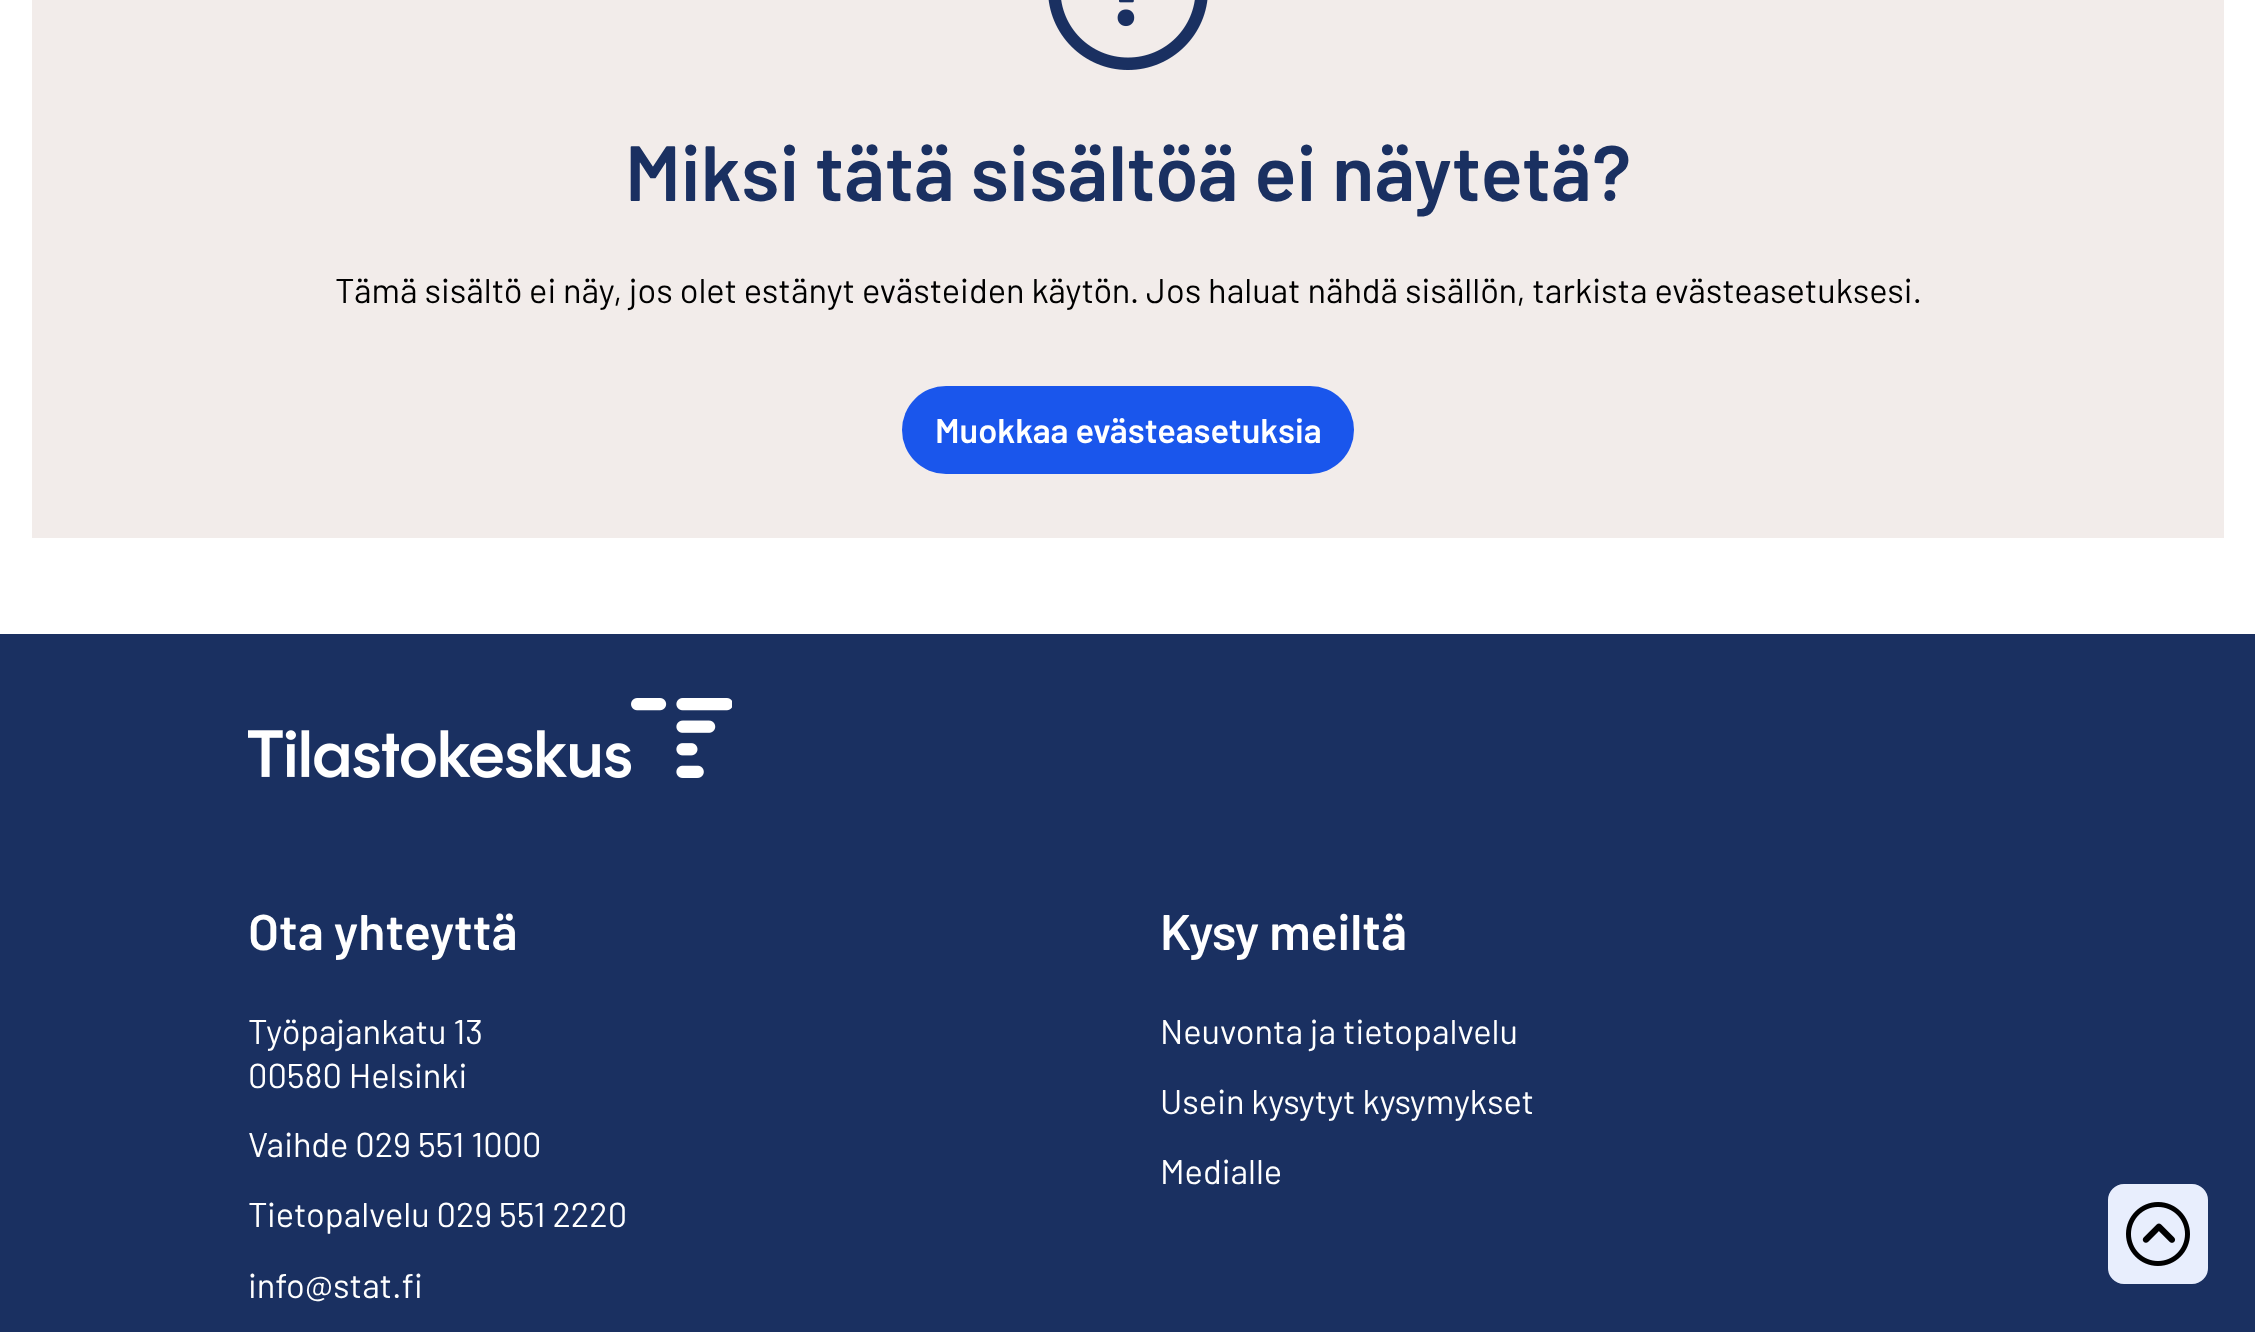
<svg xmlns="http://www.w3.org/2000/svg" width="2255" height="1332" viewBox="0 0 2255 1332">
  <rect width="100%" height="100%" fill="#ffffff"/>
  <rect x="32" y="0" width="2192" height="538" fill="#f2ecea"/>
  <image x="1048" y="0" width="160" height="70" href="img1.png"/>
  <text x="625" y="201" font-family="Barlow" font-size="78.1" font-weight="600" fill="#1a3061">Miksi tätä sisältöä ei näytetä?</text>
  <text x="335" y="303" font-family="Barlow" font-size="34.4" fill="#000000">Tämä sisältö ei näy, jos olet estänyt evästeiden käytön. Jos haluat nähdä sisällön, tarkista evästeasetuksesi.</text>
  <rect x="902" y="386" width="452" height="88" rx="44" fill="#1a56ec"/>
  <text x="935" y="443" font-family="Barlow" font-size="34.4" font-weight="600" fill="#ffffff">Muokkaa evästeasetuksia</text>
  <rect x="0" y="634" width="2255" height="698" fill="#1a3061"/>
  <image x="248" y="698" width="484" height="80" href="img2.png"/>
  <text x="248" y="950" font-family="Barlow" font-size="50" font-weight="600" fill="#ffffff">Ota yhteyttä</text>
  <text x="248" y="1044" font-family="Barlow" font-size="34.4" fill="#ffffff">Työpajankatu 13</text>
  <text x="248" y="1088" font-family="Barlow" font-size="34.4" fill="#ffffff">00580 Helsinki</text>
  <text x="248" y="1157" font-family="Barlow" font-size="34.4" fill="#ffffff">Vaihde 029 551 1000</text>
  <text x="248" y="1227" font-family="Barlow" font-size="34.4" fill="#ffffff">Tietopalvelu 029 551 2220</text>
  <text x="248" y="1298" font-family="Barlow" font-size="34.4" fill="#ffffff">info@stat.fi</text>
  <text x="1160" y="950" font-family="Barlow" font-size="50" font-weight="600" fill="#ffffff">Kysy meiltä</text>
  <text x="1160" y="1044" font-family="Barlow" font-size="34.4" fill="#ffffff">Neuvonta ja tietopalvelu</text>
  <text x="1160" y="1114" font-family="Barlow" font-size="34.4" fill="#ffffff">Usein kysytyt kysymykset</text>
  <text x="1160" y="1184" font-family="Barlow" font-size="34.4" fill="#ffffff">Medialle</text>
  <rect x="2109" y="1185" width="98" height="98" rx="15" fill="#e8eefd" stroke="#e8eefd" stroke-width="2"/>
  <image x="2126" y="1202" width="64" height="64" href="img3.png"/>
</svg>
